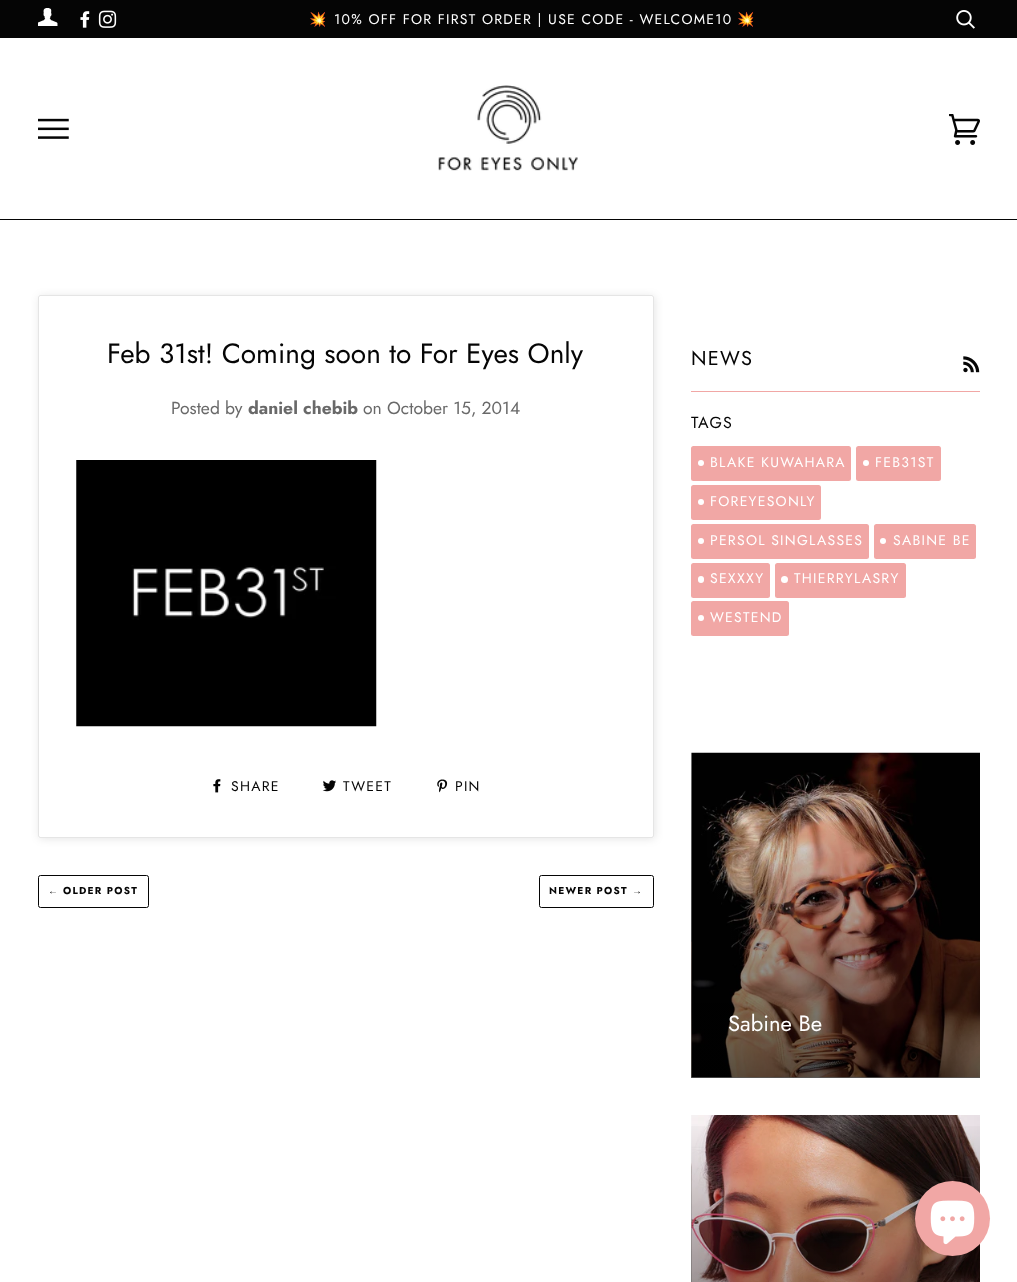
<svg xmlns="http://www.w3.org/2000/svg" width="1017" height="1282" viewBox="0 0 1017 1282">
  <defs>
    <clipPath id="clip1"><path d="M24 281H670V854H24ZM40.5 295H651.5C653 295 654 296 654 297.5V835.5C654 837 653 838 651.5 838H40.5C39 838 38 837 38 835.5V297.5C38 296 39 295 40.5 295Z" clip-rule="evenodd"/></clipPath>
    <filter id="blur1" x="-50%" y="-200%" width="200%" height="500%"><feGaussianBlur stdDeviation="4.5"/></filter>
    <linearGradient id="g1" gradientUnits="userSpaceOnUse" x1="836" y1="753" x2="836" y2="1078"><stop offset="0" stop-color="#000000" stop-opacity="0"/><stop offset="1" stop-color="#000000" stop-opacity="0.65"/></linearGradient>
    <linearGradient id="g2" gradientUnits="userSpaceOnUse" x1="836" y1="1115" x2="836" y2="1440"><stop offset="0" stop-color="#000000" stop-opacity="0"/><stop offset="1" stop-color="#000000" stop-opacity="0.65"/></linearGradient>
  </defs>
  <rect width="100%" height="100%" fill="#ffffff"/>
  <rect x="0" y="0" width="1017" height="38" fill="#050505"/>
  <image x="38" y="8" width="20" height="18" href="img1.png"/>
  <image x="80" y="11" width="10" height="17" href="img2.png"/>
  <image x="98" y="10" width="19" height="18" href="img3.png"/>
  <text x="309" y="24" font-family="Noto Color Emoji" font-size="14" letter-spacing="1.25" fill="#ffffff">💥</text>
  <text x="334" y="24" font-family="Jost" font-size="14" letter-spacing="1.25" fill="#ffffff">10% OFF FOR FIRST ORDER | USE CODE - WELCOME10</text>
  <text x="737" y="24" font-family="Noto Color Emoji" font-size="14" letter-spacing="1.25" fill="#ffffff">💥</text>
  <image x="956" y="10" width="19" height="19" href="img4.png"/>
  <rect x="0" y="219" width="1017" height="1" fill="#050505"/>
  <image x="38" y="118" width="31" height="21" href="img5.png"/>
  <image x="438" y="85" width="140" height="86" href="img6.png"/>
  <image x="949" y="114" width="31" height="31" href="img7.png"/>
  <g clip-path="url(#clip1)">
    <rect x="39" y="296" width="616" height="543" rx="2.5" fill="#000000" fill-opacity="0.1" filter="url(#blur1)"/>
  </g>
  <rect x="38.5" y="295.5" width="615" height="542" rx="2" fill="none" stroke="#000000" stroke-opacity="0.1"/>
  <text x="107" y="363" font-family="Jost" font-size="28" fill="#050505">Feb 31st! Coming soon to For Eyes Only</text>
  <text x="171" y="414" font-family="Jost" font-size="17.5" fill="#696969">Posted by</text>
  <text x="248" y="414" font-family="Jost" font-size="17.5" font-weight="bold" fill="#696969">daniel chebib</text>
  <text x="363" y="414" font-family="Jost" font-size="17.5" fill="#696969">on October 15, 2014</text>
  <image x="76" y="460" width="301" height="267" href="img8.png"/>
  <image x="213" y="779" width="8" height="14" href="img9.png"/>
  <text x="231" y="791" font-family="Jost" font-size="14" letter-spacing="1.25" fill="#050505">SHARE</text>
  <image x="322" y="780" width="14" height="12" href="img10.png"/>
  <text x="343" y="791" font-family="Jost" font-size="14" letter-spacing="1.25" fill="#050505">TWEET</text>
  <image x="437" y="779" width="11" height="14" href="img11.png"/>
  <text x="455" y="791" font-family="Jost" font-size="14" letter-spacing="1.25" fill="#050505">PIN</text>
  <rect x="38.5" y="875.5" width="110" height="32" rx="2" fill="none" stroke="#050505"/>
  <text x="48" y="894" font-family="Liberation Sans" font-size="10" font-weight="bold" letter-spacing="1.25" fill="#050505">←</text>
  <text x="63" y="894" font-family="Jost" font-size="10" font-weight="bold" letter-spacing="1.25" fill="#050505">OLDER POST</text>
  <rect x="539.5" y="875.5" width="114" height="32" rx="2" fill="none" stroke="#050505"/>
  <text x="549" y="894" font-family="Jost" font-size="10" font-weight="bold" letter-spacing="1.25" fill="#050505">NEWER POST</text>
  <text x="632" y="894" font-family="Liberation Sans" font-size="10" font-weight="bold" letter-spacing="1.25" fill="#050505">→</text>
  <text x="691" y="365" font-family="Jost" font-size="20" letter-spacing="1.25" fill="#050505">NEWS</text>
  <image x="963" y="356" width="17" height="17" href="img12.png"/>
  <rect x="691" y="391" width="289" height="1" fill="#f1a7a5"/>
  <text x="691" y="428" font-family="Jost" font-size="16" letter-spacing="1.25" fill="#050505">TAGS</text>
  <rect x="691" y="446" width="160" height="35" rx="2.5" fill="#f1a7a5"/>
  <circle cx="701" cy="463" r="3" fill="#ffffff"/>
  <text x="710" y="467" font-family="Jost" font-size="14" letter-spacing="1.25" fill="#ffffff">BLAKE KUWAHARA</text>
  <rect x="856" y="446" width="85" height="35" rx="2.5" fill="#f1a7a5"/>
  <circle cx="866" cy="463" r="3" fill="#ffffff"/>
  <text x="875" y="467" font-family="Jost" font-size="14" letter-spacing="1.25" fill="#ffffff">FEB31ST</text>
  <rect x="691" y="485" width="130" height="35" rx="2.5" fill="#f1a7a5"/>
  <circle cx="701" cy="502" r="3" fill="#ffffff"/>
  <text x="710" y="506" font-family="Jost" font-size="14" letter-spacing="1.25" fill="#ffffff">FOREYESONLY</text>
  <rect x="691" y="524" width="178" height="35" rx="2.5" fill="#f1a7a5"/>
  <circle cx="701" cy="541" r="3" fill="#ffffff"/>
  <text x="710" y="545" font-family="Jost" font-size="14" letter-spacing="1.25" fill="#ffffff">PERSOL SINGLASSES</text>
  <rect x="874" y="524" width="102" height="35" rx="2.5" fill="#f1a7a5"/>
  <circle cx="883" cy="541" r="3" fill="#ffffff"/>
  <text x="893" y="545" font-family="Jost" font-size="14" letter-spacing="1.25" fill="#ffffff">SABINE BE</text>
  <rect x="691" y="563" width="79" height="35" rx="2.5" fill="#f1a7a5"/>
  <rect x="698" y="576" width="6" height="7" rx="3" fill="#ffffff"/>
  <text x="710" y="583" font-family="Jost" font-size="14" letter-spacing="1.25" fill="#ffffff">SEXXXY</text>
  <rect x="775" y="563" width="131" height="35" rx="2.5" fill="#f1a7a5"/>
  <circle cx="784.5" cy="579.5" r="3.5" fill="#ffffff"/>
  <text x="794" y="583" font-family="Jost" font-size="14" letter-spacing="1.25" fill="#ffffff">THIERRYLASRY</text>
  <rect x="691" y="601" width="98" height="35" rx="2.5" fill="#f1a7a5"/>
  <circle cx="701" cy="618" r="3" fill="#ffffff"/>
  <text x="710" y="622" font-family="Jost" font-size="14" letter-spacing="1.25" fill="#ffffff">WESTEND</text>
  <image x="691" y="752" width="289" height="326" href="img13.png"/>
  <rect x="691" y="764" width="289" height="314" fill="url(#g1)"/>
  <text x="728" y="1031" font-family="Jost" font-size="22" fill="#ffffff">Sabine Be</text>
  <image x="691" y="1115" width="289" height="167" href="img14.png"/>
  <rect x="691" y="1126" width="289" height="156" fill="url(#g2)"/>
  <circle cx="952.5" cy="1218.5" r="37.5" fill="#f1a7a5"/>
  <image x="930" y="1200" width="45" height="45" href="img15.png"/>
</svg>
